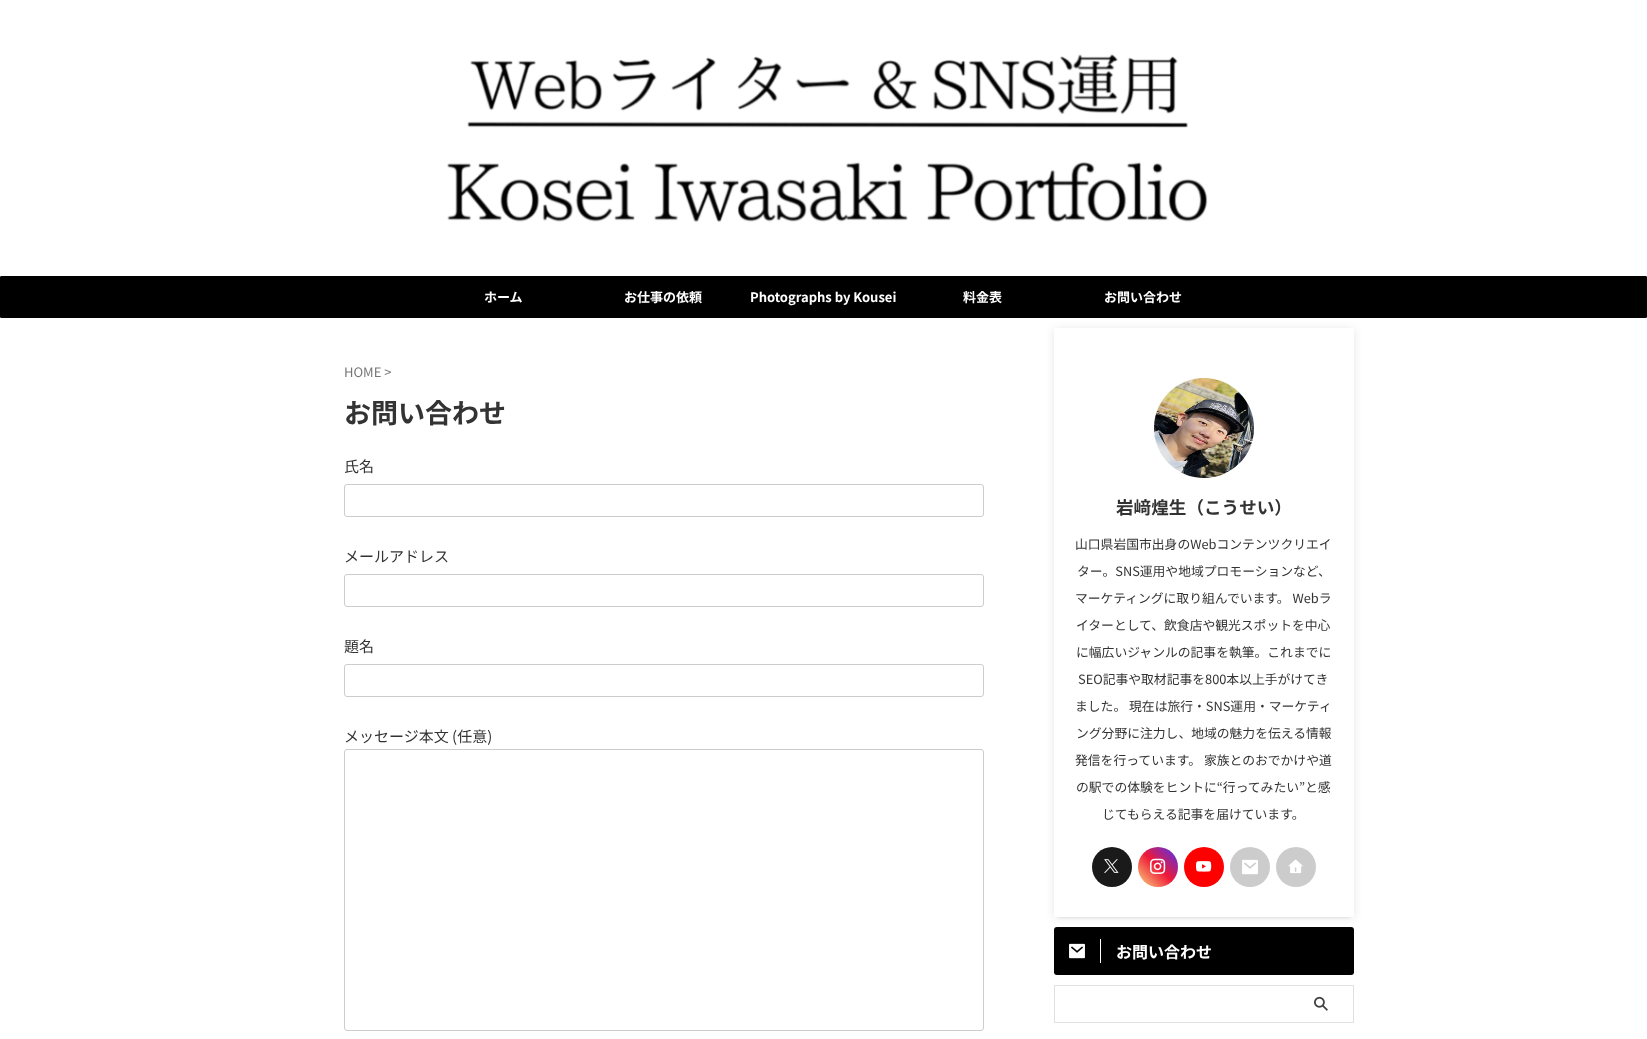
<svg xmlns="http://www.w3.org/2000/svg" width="1647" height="1039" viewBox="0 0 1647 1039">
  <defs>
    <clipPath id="clip1"><rect x="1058" y="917" width="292" height="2"/></clipPath>
    <filter id="blur1" x="-50%" y="-200%" width="200%" height="500%"><feGaussianBlur stdDeviation="2"/></filter>
    <clipPath id="clip2"><path d="M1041 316H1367V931H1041ZM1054 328H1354V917H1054Z" clip-rule="evenodd"/></clipPath>
    <filter id="blur2" x="-50%" y="-200%" width="200%" height="500%"><feGaussianBlur stdDeviation="4"/></filter>
    <linearGradient id="g1" gradientUnits="userSpaceOnUse" x1="1178" y1="847" x2="1138" y2="887"><stop offset="0" stop-color="#4933f7"/><stop offset="0.5" stop-color="#ef1837"/><stop offset="1" stop-color="#fbd980"/></linearGradient>
  </defs>
  <rect width="100%" height="100%" fill="#ffffff"/>
  <image x="447" y="54" width="761" height="169" href="img1.png"/>
  <rect x="0.5" y="276.5" width="1646" height="41" rx="0.5" fill="#000000" stroke="#000000"/>
  <text x="484" y="302" font-family="Noto Sans JP" font-size="13" font-weight="bold" fill="#ffffff">ホーム</text>
  <text x="624" y="302" font-family="Noto Sans JP" font-size="13" font-weight="bold" fill="#ffffff">お仕事の依頼</text>
  <text x="750" y="302" font-family="Noto Sans JP" font-size="13" font-weight="bold" fill="#ffffff">Photographs by Kousei</text>
  <text x="963" y="302" font-family="Noto Sans JP" font-size="13" font-weight="bold" fill="#ffffff">料金表</text>
  <text x="1104" y="302" font-family="Noto Sans JP" font-size="13" font-weight="bold" fill="#ffffff">お問い合わせ</text>
  <text x="344" y="377" font-family="Noto Sans JP" font-size="13" fill="#777777">HOME &gt;</text>
  <text x="344" y="423" font-family="Noto Sans JP" font-size="27" font-weight="bold" fill="#333333">お問い合わせ</text>
  <text x="344" y="472" font-family="Noto Sans JP" font-size="15" fill="#333333">氏名</text>
  <rect x="344.5" y="484.5" width="639" height="32" rx="2.5" fill="none" stroke="#cccccc"/>
  <text x="344" y="562" font-family="Noto Sans JP" font-size="15" fill="#333333">メールアドレス</text>
  <rect x="344.5" y="574.5" width="639" height="32" rx="2.5" fill="none" stroke="#cccccc"/>
  <text x="344" y="652" font-family="Noto Sans JP" font-size="15" fill="#333333">題名</text>
  <rect x="344.5" y="664.5" width="639" height="32" rx="2.5" fill="none" stroke="#cccccc"/>
  <text x="344" y="742" font-family="Noto Sans JP" font-size="15" fill="#333333">メッセージ本文 (任意)</text>
  <rect x="344.5" y="749.5" width="639" height="281" rx="2.5" fill="none" stroke="#cccccc"/>
  <g clip-path="url(#clip1)">
    <rect x="1058" y="336" width="292" height="581" fill="#000000" fill-opacity="0.1" filter="url(#blur1)"/>
  </g>
  <g clip-path="url(#clip2)">
    <rect x="1054" y="329" width="300" height="589" fill="#000000" fill-opacity="0.1" filter="url(#blur2)"/>
  </g>
  <image x="1154" y="378" width="100" height="100" href="img2.png"/>
  <text x="1116" y="514" font-family="Noto Sans JP" font-size="17.6" font-weight="bold" fill="#333333">岩﨑煌生（こうせい）</text>
  <text x="1075" y="549" font-family="Noto Sans JP" font-size="12.8" fill="#333333">山口県岩国市出身のWebコンテンツクリエイ</text>
  <text x="1077" y="576" font-family="Noto Sans JP" font-size="12.8" fill="#333333">ター。SNS運用や地域プロモーションなど、</text>
  <text x="1075" y="603" font-family="Noto Sans JP" font-size="12.8" fill="#333333">マーケティングに取り組んでいます。 Webラ</text>
  <text x="1076" y="630" font-family="Noto Sans JP" font-size="12.8" fill="#333333">イターとして、飲食店や観光スポットを中心</text>
  <text x="1076" y="657" font-family="Noto Sans JP" font-size="12.8" fill="#333333">に幅広いジャンルの記事を執筆。これまでに</text>
  <text x="1078" y="684" font-family="Noto Sans JP" font-size="12.8" fill="#333333">SEO記事や取材記事を800本以上手がけてき</text>
  <text x="1075" y="711" font-family="Noto Sans JP" font-size="12.8" fill="#333333">ました。 現在は旅行・SNS運用・マーケティ</text>
  <text x="1076" y="738" font-family="Noto Sans JP" font-size="12.8" fill="#333333">ング分野に注力し、地域の魅力を伝える情報</text>
  <text x="1075" y="765" font-family="Noto Sans JP" font-size="12.8" fill="#333333">発信を行っています。 家族とのおでかけや道</text>
  <text x="1076" y="792" font-family="Noto Sans JP" font-size="12.8" fill="#333333">の駅での体験をヒントに“行ってみたい”と感</text>
  <text x="1102" y="819" font-family="Noto Sans JP" font-size="12.8" fill="#333333">じてもらえる記事を届けています。</text>
  <circle cx="1112" cy="867" r="20" fill="#1a1a1a"/>
  <image x="1104" y="859" width="15" height="14" href="img3.png"/>
  <circle cx="1158" cy="867" r="20" fill="url(#g1)"/>
  <image x="1150" y="858" width="16" height="16" href="img4.png"/>
  <circle cx="1204" cy="867" r="20" fill="#ff0000"/>
  <image x="1196" y="861" width="16" height="11" href="img5.png"/>
  <circle cx="1250" cy="867" r="20" fill="#cccccc"/>
  <image x="1242" y="859" width="16" height="16" href="img6.png"/>
  <circle cx="1296" cy="867" r="20" fill="#cccccc"/>
  <image x="1288" y="859" width="15" height="15" href="img7.png"/>
  <rect x="1054" y="927" width="300" height="48" rx="3" fill="#000000"/>
  <rect x="1100" y="939" width="1" height="24" fill="#ffffff"/>
  <image x="1069" y="943" width="16" height="16" href="img8.png"/>
  <text x="1116" y="958" font-family="Noto Sans JP" font-size="16" font-weight="bold" fill="#ffffff">お問い合わせ</text>
  <rect x="1054.5" y="985.5" width="299" height="37" fill="none" stroke="#e0e0e0"/>
  <image x="1314" y="996" width="14" height="15" href="img9.png"/>
</svg>
